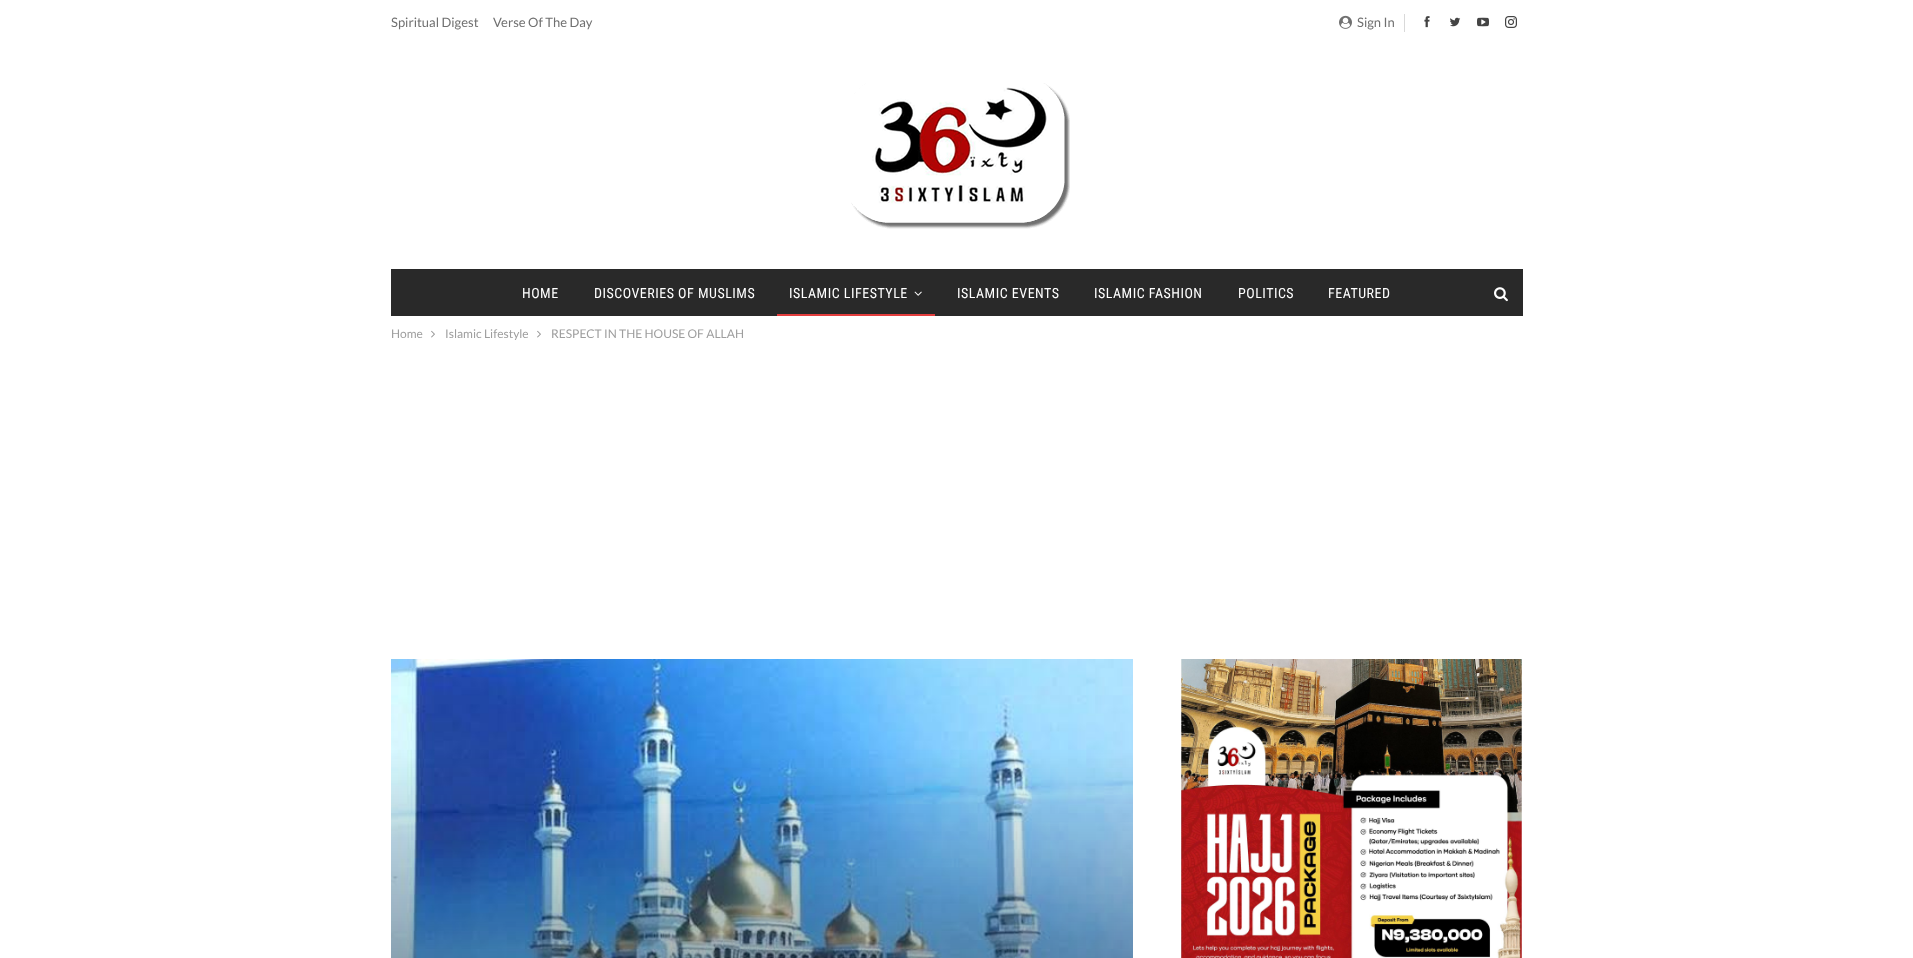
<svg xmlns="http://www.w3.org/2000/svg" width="1913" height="958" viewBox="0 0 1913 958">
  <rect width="100%" height="100%" fill="#ffffff"/>
  <text x="391" y="27" font-family="Lato" font-size="13" fill="#707070">Spiritual Digest</text>
  <text x="493" y="27" font-family="Lato" font-size="13" fill="#707070">Verse Of The Day</text>
  <image x="1339" y="15" width="13" height="14" href="img1.png"/>
  <text x="1357" y="27" font-family="Lato" font-size="13" fill="#707070">Sign In</text>
  <rect x="1404" y="14" width="1" height="18" fill="#d9d9d9"/>
  <image x="1424" y="16" width="6" height="12" href="img2.png"/>
  <image x="1450" y="17" width="11" height="10" href="img3.png"/>
  <image x="1477" y="17" width="12" height="10" href="img4.png"/>
  <image x="1505" y="16" width="12" height="12" href="img5.png"/>
  <image x="851" y="83" width="219" height="146" href="img6.png"/>
  <rect x="391" y="269" width="1132" height="47" fill="#292929"/>
  <text x="522" y="298" font-family="Roboto Condensed" font-size="14" letter-spacing="0.5" fill="#ffffff">HOME</text>
  <text x="594" y="298" font-family="Roboto Condensed" font-size="14" letter-spacing="0.5" fill="#ffffff">DISCOVERIES OF MUSLIMS</text>
  <text x="789" y="298" font-family="Roboto Condensed" font-size="14" letter-spacing="0.5" fill="#ffffff">ISLAMIC LIFESTYLE</text>
  <image x="914" y="291" width="8" height="5" href="img7.png"/>
  <rect x="777" y="314" width="158" height="2" fill="#e33d3d"/>
  <text x="957" y="298" font-family="Roboto Condensed" font-size="14" letter-spacing="0.5" fill="#ffffff">ISLAMIC EVENTS</text>
  <text x="1094" y="298" font-family="Roboto Condensed" font-size="14" letter-spacing="0.5" fill="#ffffff">ISLAMIC FASHION</text>
  <text x="1238" y="298" font-family="Roboto Condensed" font-size="14" letter-spacing="0.5" fill="#ffffff">POLITICS</text>
  <text x="1328" y="298" font-family="Roboto Condensed" font-size="14" letter-spacing="0.5" fill="#ffffff">FEATURED</text>
  <image x="1494" y="287" width="14" height="15" href="img8.png"/>
  <text x="391" y="338" font-family="Lato" font-size="12" fill="#9e9e9e">Home</text>
  <image x="431" y="330" width="4" height="8" href="img9.png"/>
  <text x="445" y="338" font-family="Lato" font-size="12" fill="#9e9e9e">Islamic Lifestyle</text>
  <image x="537" y="330" width="4" height="8" href="img9.png"/>
  <text x="551" y="338" font-family="Lato" font-size="12" fill="#9e9e9e">RESPECT IN THE HOUSE OF ALLAH</text>
  <image x="391" y="659" width="742" height="299" href="img10.png"/>
  <image x="1181" y="659" width="341" height="299" href="img11.png"/>
</svg>
